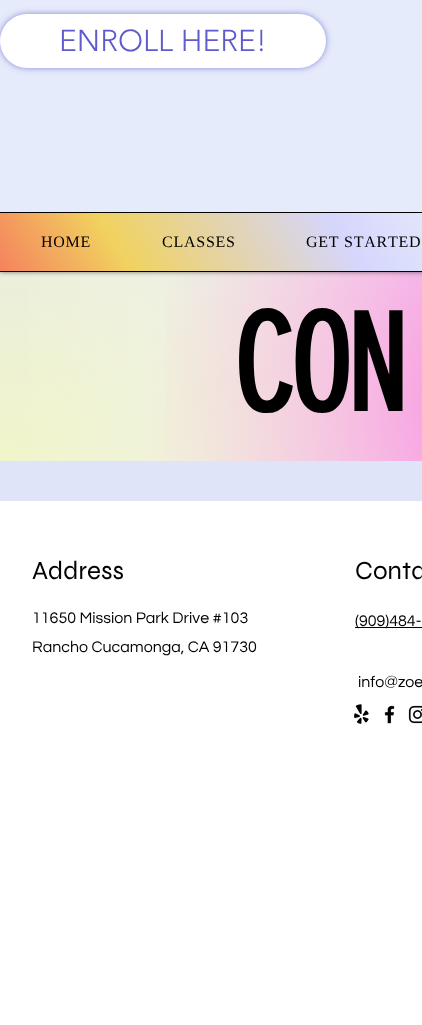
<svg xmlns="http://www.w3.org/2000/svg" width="422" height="1025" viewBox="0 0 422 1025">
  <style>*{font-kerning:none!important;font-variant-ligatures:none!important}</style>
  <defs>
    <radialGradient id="g1" gradientUnits="userSpaceOnUse" cx="479" cy="366" r="510"><stop offset="0" stop-color="#f5f6fd"/><stop offset="1" stop-color="#e0e4f9"/></radialGradient>
    <radialGradient id="g2" gradientUnits="userSpaceOnUse" cx="490" cy="461" r="525"><stop offset="0" stop-color="#f9adff" stop-opacity="0.67"/><stop offset="0.7" stop-color="#f9adff" stop-opacity="0"/></radialGradient>
    <radialGradient id="g3" gradientUnits="userSpaceOnUse" cx="498" cy="378" r="509"><stop offset="0" stop-color="#fd0da9" stop-opacity="0.33"/><stop offset="0.7" stop-color="#fd0da9" stop-opacity="0"/></radialGradient>
    <radialGradient id="g4" gradientUnits="userSpaceOnUse" cx="4.1" cy="461" r="994"><stop offset="0" stop-color="#fafeb2" stop-opacity="0.66"/><stop offset="0.5" stop-color="#fafeb2" stop-opacity="0"/></radialGradient>
    <filter id="blur1" x="-50%" y="-200%" width="200%" height="500%"><feGaussianBlur stdDeviation="2.5"/></filter>
    <filter id="blur2" x="-50%" y="-200%" width="200%" height="500%"><feGaussianBlur stdDeviation="3"/></filter>
    <linearGradient id="g5" gradientUnits="userSpaceOnUse" x1="124" y1="470" x2="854" y2="14"><stop offset="0" stop-color="#f5825d"/><stop offset="0.13" stop-color="#f1d25f"/><stop offset="0.36" stop-color="#d5d6fd"/><stop offset="0.48" stop-color="#e4ebfb"/><stop offset="0.59" stop-color="#c2d9e7"/><stop offset="0.76" stop-color="#bbd5e3"/><stop offset="0.86" stop-color="#dbdefc"/><stop offset="0.99" stop-color="#8e88e1"/></linearGradient>
  </defs>
  <rect width="100%" height="100%" fill="#e0e4f9"/>
  <rect x="30" y="272" width="392" height="189" fill="url(#g1)"/>
  <rect x="143" y="272" width="279" height="189" fill="url(#g2)"/>
  <rect x="165" y="272" width="257" height="189" fill="url(#g3)"/>
  <rect x="0" y="272" width="422" height="189" fill="url(#g4)"/>
  <rect x="0" y="0" width="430" height="272" fill="#000000" fill-opacity="0.5" filter="url(#blur1)"/>
  <rect x="0" y="0" width="422" height="212" fill="#e5ebfa"/>
  <rect x="0" y="14" width="326" height="54" rx="27" fill="#5f5bcd" fill-opacity="0.7" filter="url(#blur2)"/>
  <rect x="0" y="14" width="326" height="54" rx="27" fill="#ffffff"/>
  <text x="59" y="51" font-family="'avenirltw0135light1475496'" font-size="30" font-weight="300" fill="#5f5bcd">ENROLL HERE!</text>
  <rect x="0" y="213" width="422" height="58" fill="url(#g5)"/>
  <rect x="0" y="212" width="422" height="1" fill="#000000"/>
  <rect x="0" y="271" width="422" height="1" fill="#000000"/>
  <text x="41" y="247" font-family="Liberation Serif" font-size="16" letter-spacing="0.75" fill="#000000">HOME</text>
  <text x="162" y="247" font-family="Liberation Serif" font-size="16" letter-spacing="0.75" fill="#000000">CLASSES</text>
  <text x="306" y="247" font-family="Liberation Serif" font-size="16" letter-spacing="0.75" fill="#000000">GET STARTED</text>
  <text x="234" y="411" font-family="'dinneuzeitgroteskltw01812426'" font-size="137" letter-spacing="-7" fill="#000000">CON</text>
  <rect x="0" y="501" width="422" height="524" fill="#ffffff"/>
  <text x="32" y="579" font-family="Syne" font-size="26" fill="#000000">Address</text>
  <text x="355" y="579" font-family="Syne" font-size="26" fill="#000000">Conta</text>
  <text x="32" y="623" font-family="Questrial" font-size="16" fill="#000000">11650 Mission Park Drive #103</text>
  <text x="32" y="652" font-family="Questrial" font-size="16" fill="#000000">Rancho Cucamonga, CA 91730</text>
  <rect x="355" y="627" width="67" height="1" fill="#000000"/>
  <text x="355" y="626" font-family="Questrial" font-size="16" fill="#000000">(909)484-</text>
  <text x="358" y="687" font-family="Questrial" font-size="16" fill="#000000">info@zoe</text>
  <image x="354" y="704" width="15" height="20" href="img1.png"/>
  <image x="384" y="705" width="11" height="19" href="img2.png"/>
  <image x="408" y="705" width="14" height="19" href="img3.png"/>
</svg>
